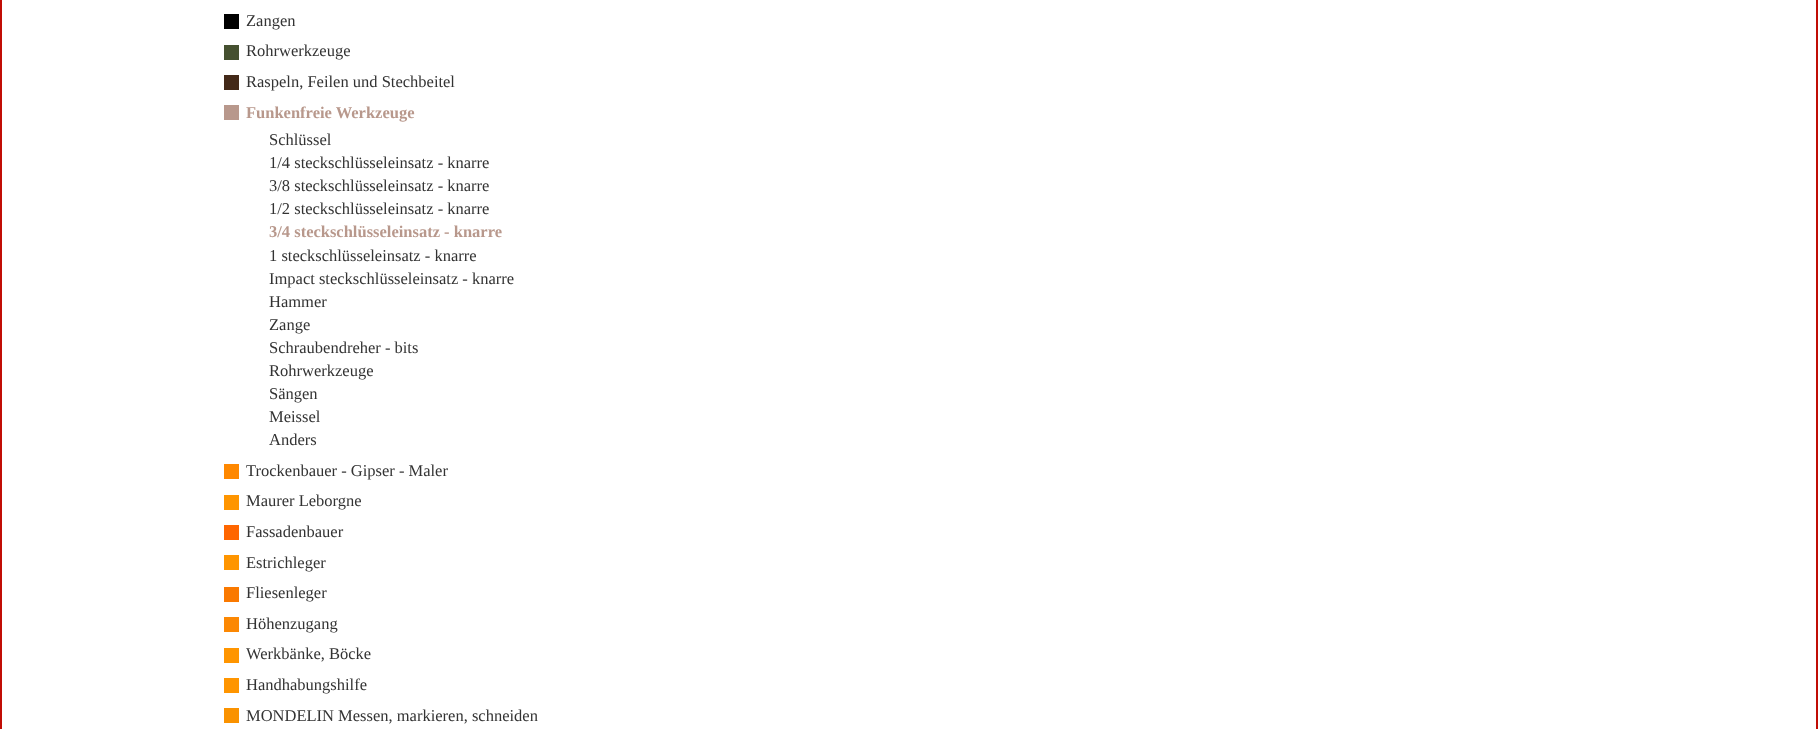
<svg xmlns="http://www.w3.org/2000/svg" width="1818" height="729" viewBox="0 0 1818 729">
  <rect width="100%" height="100%" fill="#ffffff"/>
  <rect x="1" y="-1" width="1816" height="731" fill="none" stroke="#c10d05" stroke-width="2"/>
  <rect x="224" y="14" width="15" height="15" fill="#000000"/>
  <text x="246" y="26" font-family="Liberation Serif" font-size="16.5" fill="#333333">Zangen</text>
  <rect x="224" y="45" width="15" height="15" fill="#455030"/>
  <text x="246" y="56" font-family="Liberation Serif" font-size="16.5" fill="#333333">Rohrwerkzeuge</text>
  <rect x="224" y="75" width="15" height="15" fill="#432918"/>
  <text x="246" y="87" font-family="Liberation Serif" font-size="16.5" fill="#333333">Raspeln, Feilen und Stechbeitel</text>
  <rect x="224" y="105" width="15" height="15" fill="#b8988c"/>
  <text x="246" y="118" font-family="Liberation Serif" font-size="16.5" font-weight="bold" fill="#b8988c">Funkenfreie Werkzeuge</text>
  <text x="269" y="145" font-family="Liberation Serif" font-size="16.5" fill="#333333">Schlüssel</text>
  <text x="269" y="168" font-family="Liberation Serif" font-size="16.5" fill="#333333">1/4 steckschlüsseleinsatz - knarre</text>
  <text x="269" y="191" font-family="Liberation Serif" font-size="16.5" fill="#333333">3/8 steckschlüsseleinsatz - knarre</text>
  <text x="269" y="214" font-family="Liberation Serif" font-size="16.5" fill="#333333">1/2 steckschlüsseleinsatz - knarre</text>
  <text x="269" y="237" font-family="Liberation Serif" font-size="16.5" font-weight="bold" fill="#b8988c">3/4 steckschlüsseleinsatz - knarre</text>
  <text x="269" y="261" font-family="Liberation Serif" font-size="16.5" fill="#333333">1 steckschlüsseleinsatz - knarre</text>
  <text x="269" y="284" font-family="Liberation Serif" font-size="16.5" fill="#333333">Impact steckschlüsseleinsatz - knarre</text>
  <text x="269" y="307" font-family="Liberation Serif" font-size="16.5" fill="#333333">Hammer</text>
  <text x="269" y="330" font-family="Liberation Serif" font-size="16.5" fill="#333333">Zange</text>
  <text x="269" y="353" font-family="Liberation Serif" font-size="16.5" fill="#333333">Schraubendreher - bits</text>
  <text x="269" y="376" font-family="Liberation Serif" font-size="16.5" fill="#333333">Rohrwerkzeuge</text>
  <text x="269" y="399" font-family="Liberation Serif" font-size="16.5" fill="#333333">Sängen</text>
  <text x="269" y="422" font-family="Liberation Serif" font-size="16.5" fill="#333333">Meissel</text>
  <text x="269" y="445" font-family="Liberation Serif" font-size="16.5" fill="#333333">Anders</text>
  <rect x="224" y="464" width="15" height="15" fill="#ff8800"/>
  <text x="246" y="476" font-family="Liberation Serif" font-size="16.5" fill="#333333">Trockenbauer - Gipser - Maler</text>
  <rect x="224" y="495" width="15" height="15" fill="#ff9500"/>
  <text x="246" y="506" font-family="Liberation Serif" font-size="16.5" fill="#333333">Maurer Leborgne</text>
  <rect x="224" y="525" width="15" height="15" fill="#ff6600"/>
  <text x="246" y="537" font-family="Liberation Serif" font-size="16.5" fill="#333333">Fassadenbauer</text>
  <rect x="224" y="555" width="15" height="15" fill="#ff9500"/>
  <text x="246" y="568" font-family="Liberation Serif" font-size="16.5" fill="#333333">Estrichleger</text>
  <rect x="224" y="587" width="15" height="15" fill="#fa7900"/>
  <text x="246" y="598" font-family="Liberation Serif" font-size="16.5" fill="#333333">Fliesenleger</text>
  <rect x="224" y="617" width="15" height="15" fill="#fc8803"/>
  <text x="246" y="629" font-family="Liberation Serif" font-size="16.5" fill="#333333">Höhenzugang</text>
  <rect x="224" y="648" width="15" height="15" fill="#ff9500"/>
  <text x="246" y="659" font-family="Liberation Serif" font-size="16.5" fill="#333333">Werkbänke, Böcke</text>
  <rect x="224" y="678" width="15" height="15" fill="#ff9500"/>
  <text x="246" y="690" font-family="Liberation Serif" font-size="16.5" fill="#333333">Handhabungshilfe</text>
  <rect x="224" y="708" width="15" height="15" fill="#fa9200"/>
  <text x="246" y="721" font-family="Liberation Serif" font-size="16.5" fill="#333333">MONDELIN Messen, markieren, schneiden</text>
</svg>
